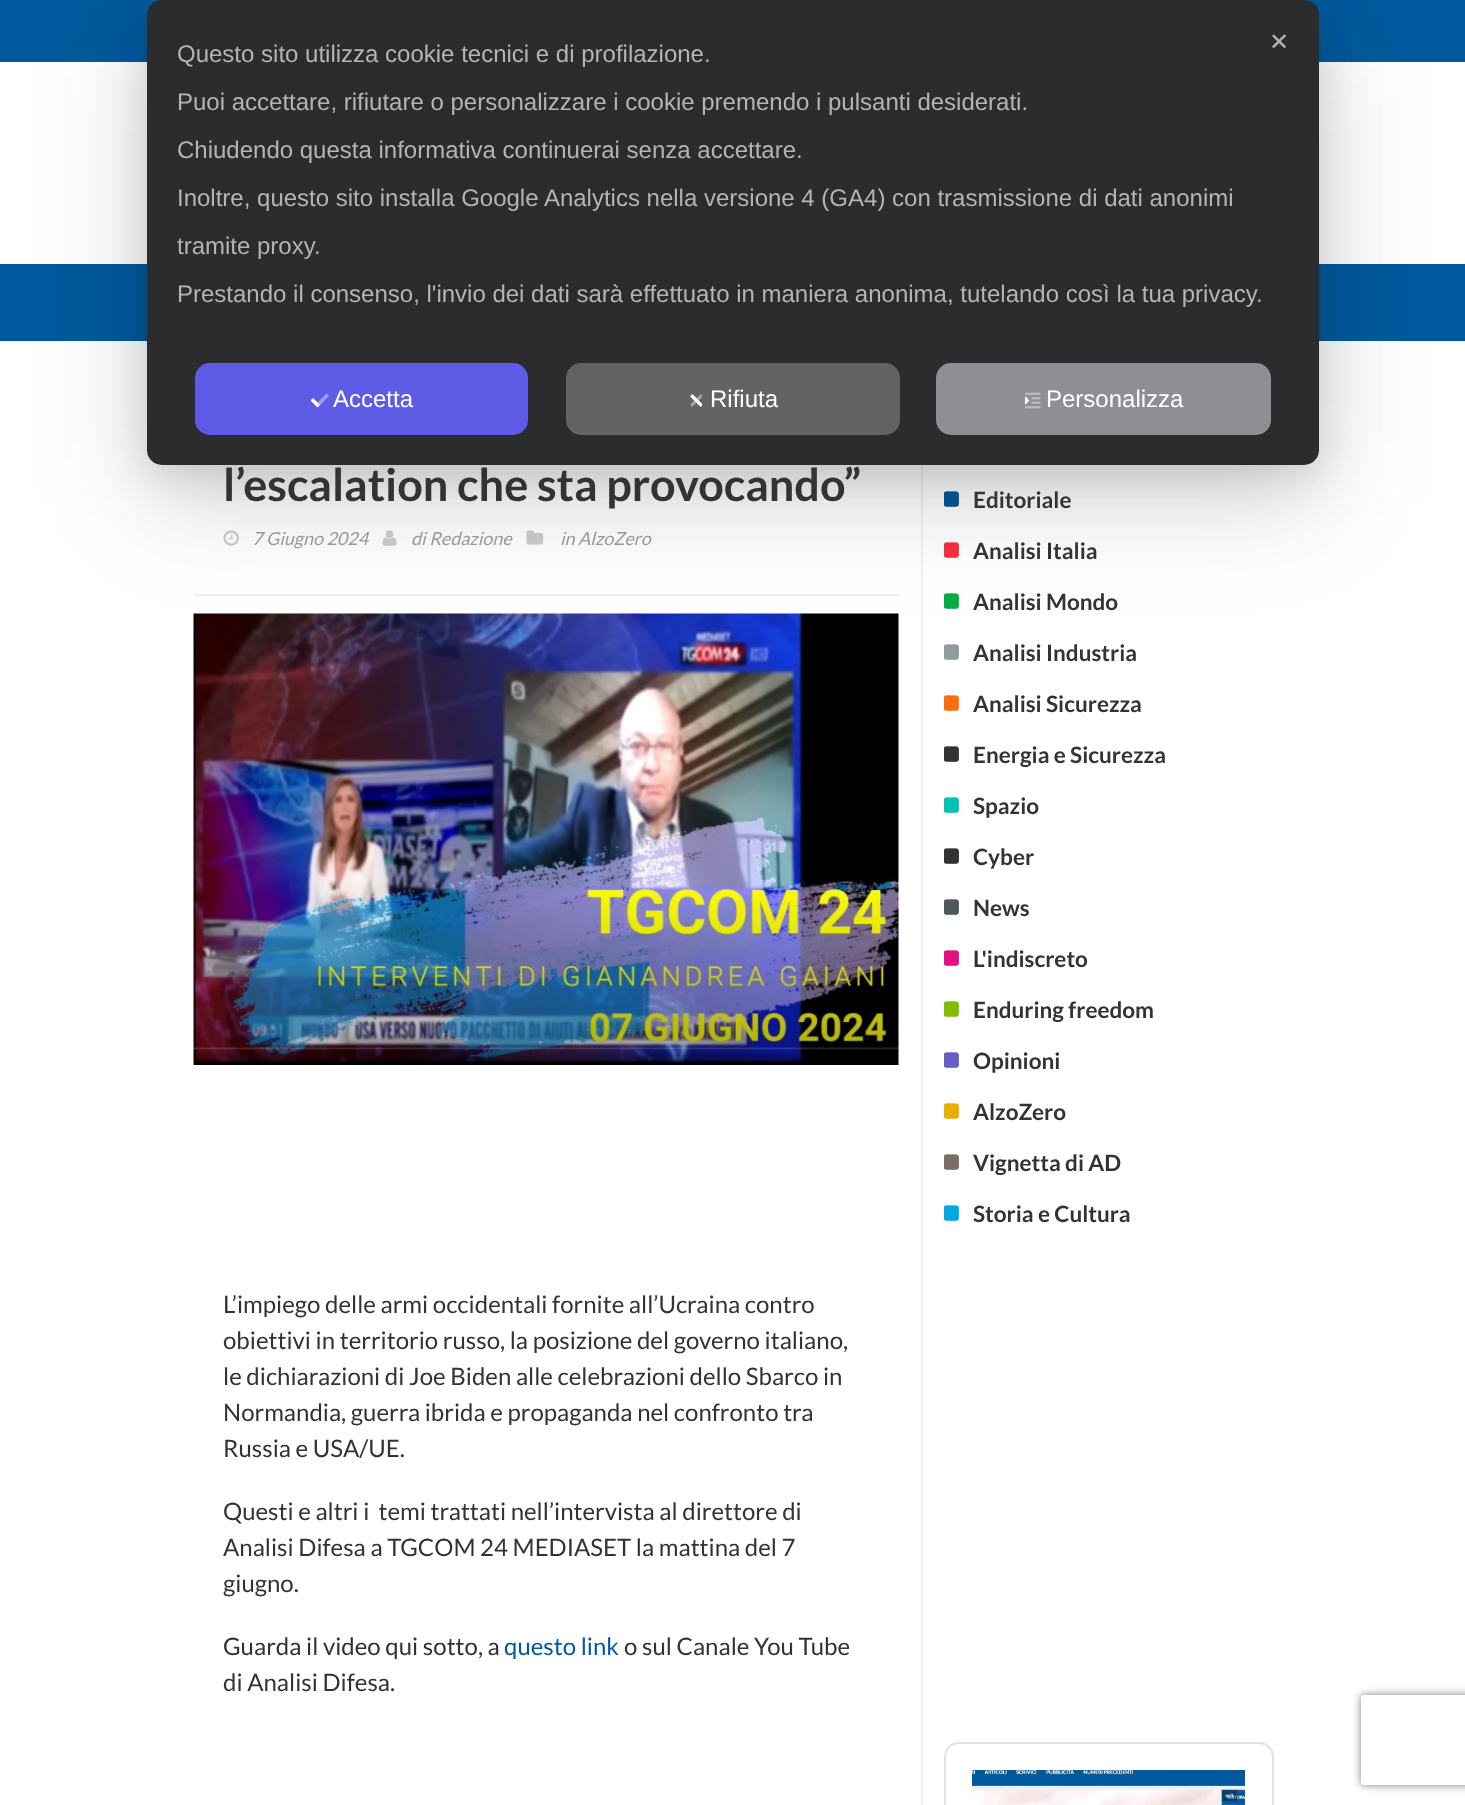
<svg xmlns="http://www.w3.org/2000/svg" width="1465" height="1805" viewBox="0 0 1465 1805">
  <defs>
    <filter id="blur1" x="-50%" y="-200%" width="200%" height="500%"><feGaussianBlur stdDeviation="60"/></filter>
    <filter id="blur2" x="-50%" y="-200%" width="200%" height="500%"><feGaussianBlur stdDeviation="42"/></filter>
    <filter id="blur3" x="-50%" y="-200%" width="200%" height="500%"><feGaussianBlur stdDeviation="18"/></filter>
    <clipPath id="clip1"><path d="M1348 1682H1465V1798H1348ZM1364 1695H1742C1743.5 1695 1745 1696.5 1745 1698V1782C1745 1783.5 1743.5 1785 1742 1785H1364C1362.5 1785 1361 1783.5 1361 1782V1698C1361 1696.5 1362.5 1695 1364 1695Z" clip-rule="evenodd"/></clipPath>
    <filter id="blur4" x="-50%" y="-200%" width="200%" height="500%"><feGaussianBlur stdDeviation="4"/></filter>
  </defs>
  <rect width="100%" height="100%" fill="#ffffff"/>
  <rect x="0" y="0" width="1465" height="62" fill="#00599d"/>
  <rect x="0" y="264" width="1465" height="77" fill="#00599d"/>
  <rect x="194" y="594" width="705" height="2" fill="#f0f0f0"/>
  <image x="223" y="530" width="16" height="16" href="img4.png"/>
  <image x="382" y="530" width="15" height="16" href="img5.png"/>
  <image x="526" y="530" width="18" height="15" href="img6.png"/>
  <image x="193" y="613" width="706" height="452" href="img7.png"/>
  <rect x="921" y="465" width="2" height="1340" fill="#f0f0f0"/>
  <image x="944" y="491" width="15" height="16" href="img8.png"/>
  <image x="944" y="542" width="15" height="16" href="img9.png"/>
  <image x="944" y="593" width="15" height="16" href="img10.png"/>
  <image x="944" y="644" width="15" height="16" href="img11.png"/>
  <rect x="147" y="36" width="1172" height="465" rx="15" fill="#11111a" fill-opacity="0.1" filter="url(#blur1)"/>
  <rect x="147" y="24" width="1172" height="465" rx="15" fill="#11111a" fill-opacity="0.1" filter="url(#blur2)"/>
  <rect x="147" y="12" width="1172" height="465" rx="15" fill="#11111a" fill-opacity="0.1" filter="url(#blur3)"/>
  <rect x="147" y="0" width="1172" height="465" rx="15" fill="#2c2c2e"/>
  <text x="1269" y="50" font-family="DejaVu Sans" font-size="24" fill="#b4b4b4">✕</text>
  <text x="177" y="62" font-family="Liberation Sans" font-size="24" fill="#b4b4b4">Questo sito utilizza cookie tecnici e di profilazione.</text>
  <text x="177" y="110" font-family="Liberation Sans" font-size="24" fill="#b4b4b4">Puoi accettare, rifiutare o personalizzare i cookie premendo i pulsanti desiderati.</text>
  <text x="177" y="158" font-family="Liberation Sans" font-size="24" fill="#b4b4b4">Chiudendo questa informativa continuerai senza accettare.</text>
  <text x="177" y="206" font-family="Liberation Sans" font-size="24" fill="#b4b4b4">Inoltre, questo sito installa Google Analytics nella versione 4 (GA4) con trasmissione di dati anonimi</text>
  <text x="177" y="254" font-family="Liberation Sans" font-size="24" fill="#b4b4b4">tramite proxy.</text>
  <text x="177" y="302" font-family="Liberation Sans" font-size="24" fill="#b4b4b4">Prestando il consenso, l'invio dei dati sarà effettuato in maniera anonima, tutelando così la tua privacy.</text>
  <rect x="195" y="363" width="333" height="72" rx="15" fill="#5e5ce6"/>
  <image x="311" y="393" width="18" height="15" href="img1.png"/>
  <text x="333" y="407" font-family="Liberation Sans" font-size="24" fill="#ffffff">Accetta</text>
  <rect x="566" y="363" width="334" height="72" rx="15" fill="#636366"/>
  <image x="690" y="394" width="12" height="13" href="img2.png"/>
  <text x="710" y="407" font-family="Liberation Sans" font-size="24" fill="#ffffff">Rifiuta</text>
  <rect x="936" y="363" width="335" height="72" rx="15" fill="#8e8e93"/>
  <image x="1025" y="392" width="16" height="17" href="img3.png"/>
  <text x="1046" y="407" font-family="Liberation Sans" font-size="24" fill="#ffffff">Personalizza</text>
  <text x="223" y="501" font-family="Lato" font-size="45" font-weight="bold" fill="#333333">l’escalation che sta provocando”</text>
  <text x="252" y="545" font-family="Lato" font-size="18" font-style="italic" fill="#999999">7 Giugno 2024</text>
  <text x="411" y="545" font-family="Lato" font-size="18" font-style="italic" fill="#999999">di Redazione</text>
  <text x="560" y="545" font-family="Lato" font-size="18" font-style="italic" fill="#999999">in AlzoZero</text>
  <text x="223" y="1313" font-family="Lato" font-size="24" fill="#333333">L’impiego delle armi occidentali fornite all’Ucraina contro</text>
  <text x="223" y="1349" font-family="Lato" font-size="24" fill="#333333">obiettivi in territorio russo, la posizione del governo italiano,</text>
  <text x="223" y="1385" font-family="Lato" font-size="24" fill="#333333">le dichiarazioni di Joe Biden alle celebrazioni dello Sbarco in</text>
  <text x="223" y="1421" font-family="Lato" font-size="24" fill="#333333">Normandia, guerra ibrida e propaganda nel confronto tra</text>
  <text x="223" y="1457" font-family="Lato" font-size="24" fill="#333333">Russia e USA/UE.</text>
  <text x="223" y="1520" font-family="Lato" font-size="24" fill="#333333" xml:space="preserve">Questi e altri i  temi trattati nell’intervista al direttore di</text>
  <text x="223" y="1556" font-family="Lato" font-size="24" fill="#333333">Analisi Difesa a TGCOM 24 MEDIASET la mattina del 7</text>
  <text x="223" y="1592" font-family="Lato" font-size="24" fill="#333333">giugno.</text>
  <text x="223" y="1655" font-family="Lato" font-size="24" fill="#333333">Guarda il video qui sotto, a</text>
  <text x="504" y="1655" font-family="Lato" font-size="24" fill="#00599d">questo link</text>
  <text x="624" y="1655" font-family="Lato" font-size="24" fill="#333333">o sul Canale You Tube</text>
  <text x="223" y="1691" font-family="Lato" font-size="24" fill="#333333">di Analisi Difesa.</text>
  <text x="973" y="508" font-family="Lato" font-size="22.5" font-weight="bold" fill="#333333">Editoriale</text>
  <text x="973" y="559" font-family="Lato" font-size="22.5" font-weight="bold" fill="#333333">Analisi Italia</text>
  <text x="973" y="610" font-family="Lato" font-size="22.5" font-weight="bold" fill="#333333">Analisi Mondo</text>
  <text x="973" y="661" font-family="Lato" font-size="22.5" font-weight="bold" fill="#333333">Analisi Industria</text>
  <image x="944" y="695" width="15" height="16" href="img12.png"/>
  <text x="973" y="712" font-family="Lato" font-size="22.5" font-weight="bold" fill="#333333">Analisi Sicurezza</text>
  <image x="944" y="746" width="15" height="16" href="img13.png"/>
  <text x="973" y="763" font-family="Lato" font-size="22.5" font-weight="bold" fill="#333333">Energia e Sicurezza</text>
  <image x="944" y="797" width="15" height="16" href="img14.png"/>
  <text x="973" y="814" font-family="Lato" font-size="22.5" font-weight="bold" fill="#333333">Spazio</text>
  <image x="944" y="848" width="15" height="16" href="img13.png"/>
  <text x="973" y="865" font-family="Lato" font-size="22.5" font-weight="bold" fill="#333333">Cyber</text>
  <image x="944" y="899" width="15" height="16" href="img15.png"/>
  <text x="973" y="916" font-family="Lato" font-size="22.5" font-weight="bold" fill="#333333">News</text>
  <image x="944" y="950" width="15" height="16" href="img16.png"/>
  <text x="973" y="967" font-family="Lato" font-size="22.5" font-weight="bold" fill="#333333">L'indiscreto</text>
  <image x="944" y="1001" width="15" height="16" href="img17.png"/>
  <text x="973" y="1018" font-family="Lato" font-size="22.5" font-weight="bold" fill="#333333">Enduring freedom</text>
  <image x="944" y="1052" width="15" height="16" href="img18.png"/>
  <text x="973" y="1069" font-family="Lato" font-size="22.5" font-weight="bold" fill="#333333">Opinioni</text>
  <image x="944" y="1103" width="15" height="16" href="img19.png"/>
  <text x="973" y="1120" font-family="Lato" font-size="22.5" font-weight="bold" fill="#333333">AlzoZero</text>
  <image x="944" y="1154" width="15" height="16" href="img20.png"/>
  <text x="973" y="1171" font-family="Lato" font-size="22.5" font-weight="bold" fill="#333333">Vignetta di AD</text>
  <image x="944" y="1205" width="15" height="16" href="img21.png"/>
  <text x="973" y="1222" font-family="Lato" font-size="22.5" font-weight="bold" fill="#333333">Storia e Cultura</text>
  <rect x="945" y="1743" width="328" height="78" rx="14" fill="none" stroke="#e1e1e1" stroke-width="2"/>
  <image x="972" y="1770" width="273" height="35" href="img22.png"/>
  <g clip-path="url(#clip1)">
    <rect x="1361" y="1695" width="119" height="90" rx="3" fill="#808080" filter="url(#blur4)"/>
  </g>
</svg>
